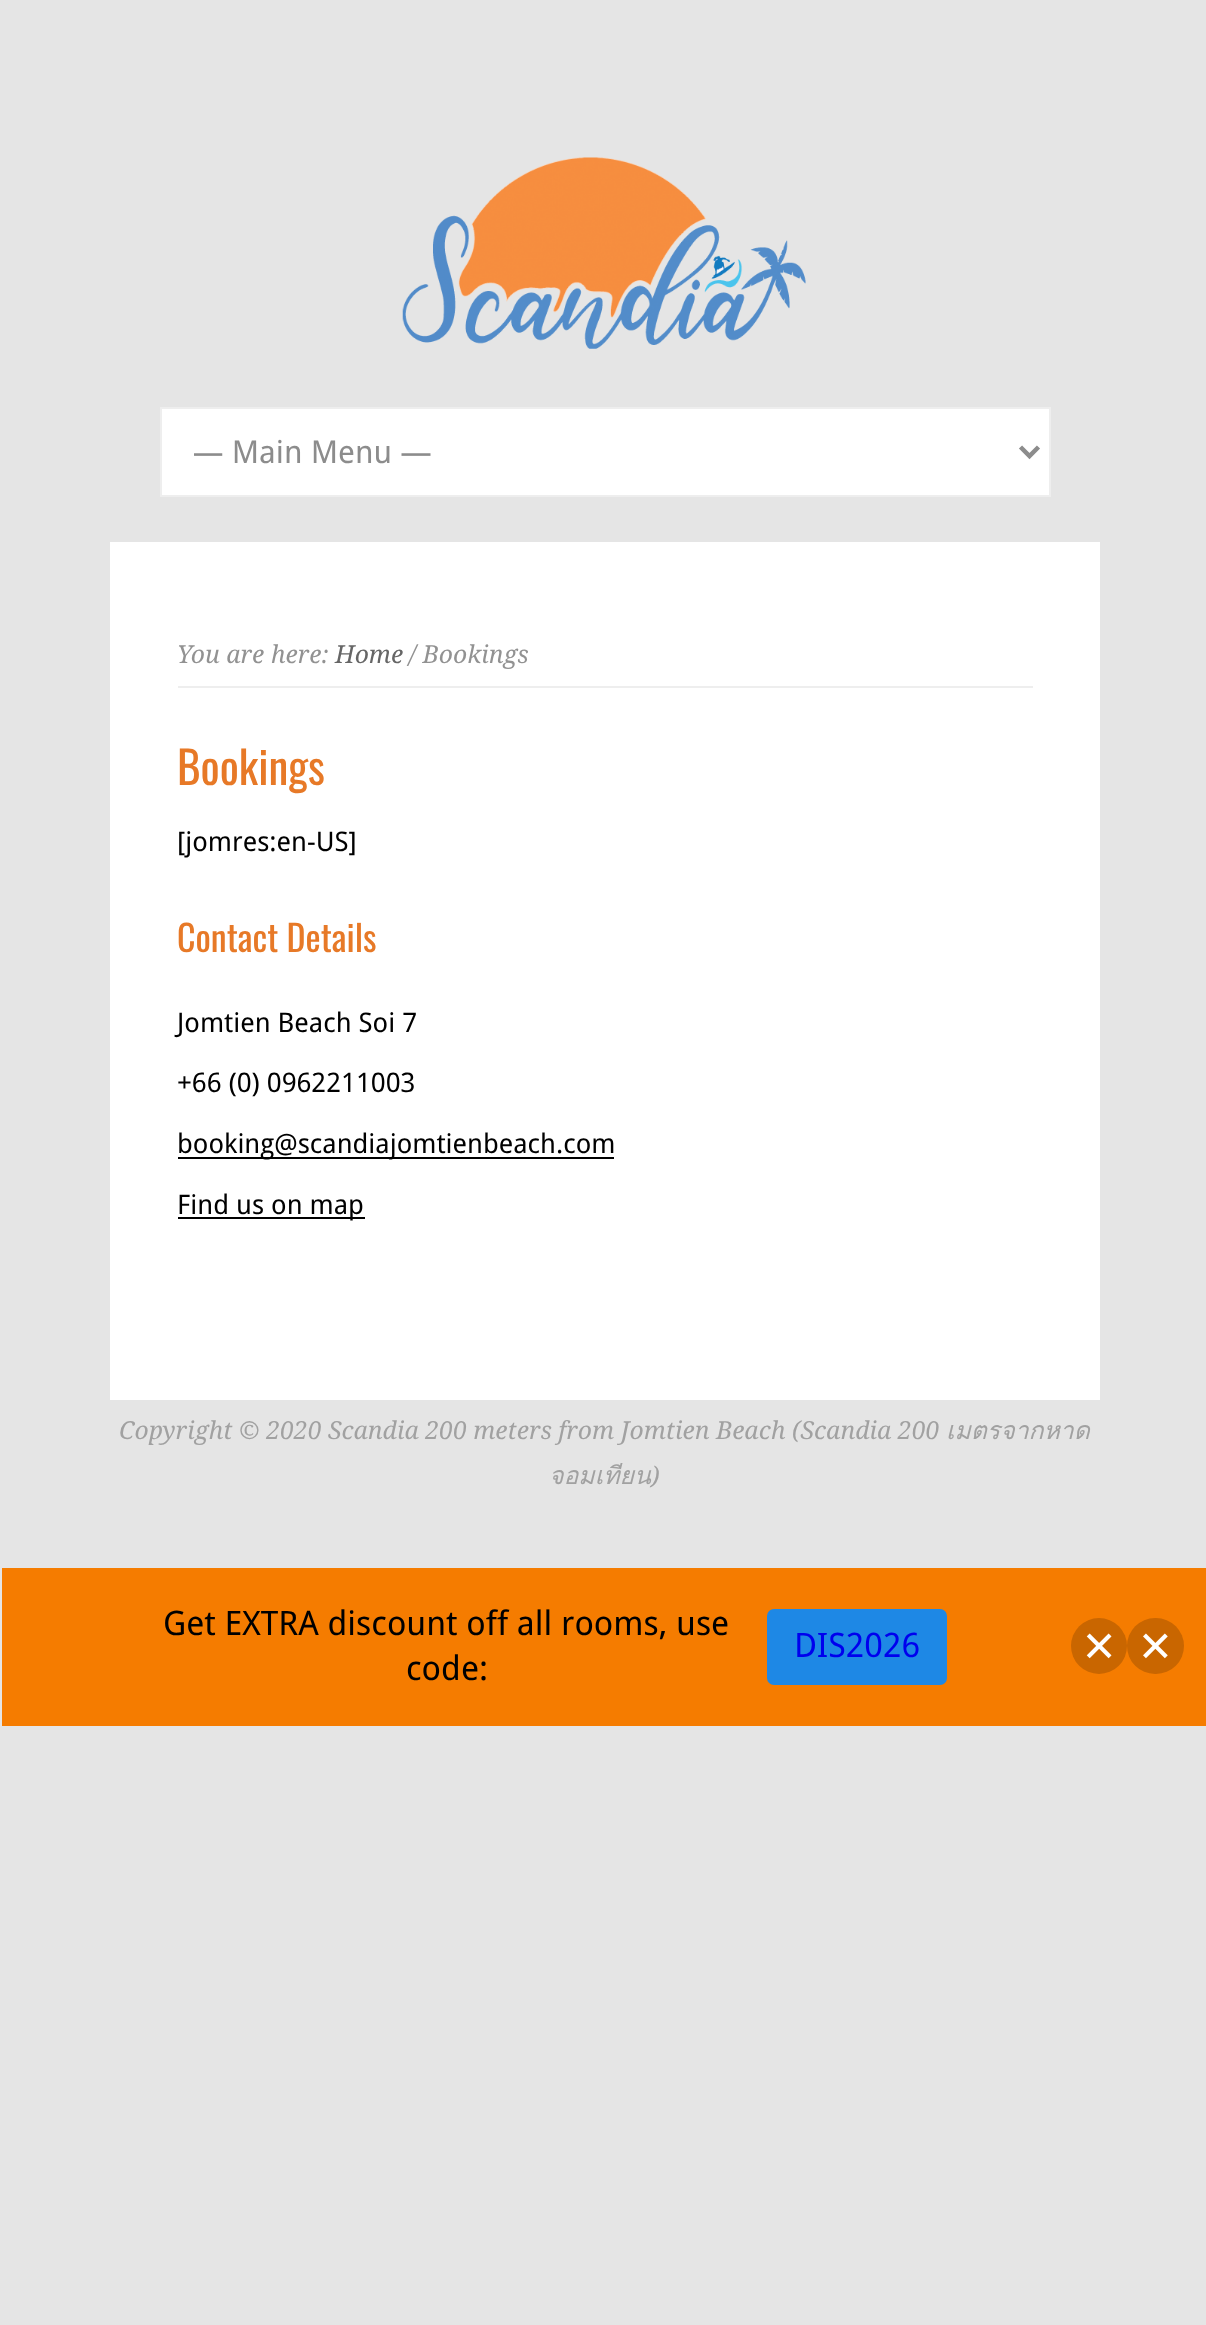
<svg xmlns="http://www.w3.org/2000/svg" width="1206" height="2325" viewBox="0 0 1206 2325">
  <defs>
    <clipPath id="clip1"><rect x="194" y="432" width="796" height="41"/></clipPath>
  </defs>
  <rect width="100%" height="100%" fill="#e5e5e5"/>
  <image x="402" y="157" width="404" height="192" href="img1.png"/>
  <rect x="161" y="408" width="889" height="88" fill="#ffffff" stroke="#eeeeee" stroke-width="2"/>
  <path d="M1020.5 447L1029.5 456L1038.5 447" fill="none" stroke="#8c8c8c" stroke-width="4.5"/>
  <g clip-path="url(#clip1)">
    <text x="192" y="463" font-family="Droid Sans" font-size="31.5" fill="#8c8c8c">— Main Menu —</text>
  </g>
  <rect x="110" y="542" width="990" height="858" fill="#ffffff"/>
  <rect x="178" y="686" width="855" height="2" fill="#eeeeee"/>
  <text x="177" y="663" font-family="Droid Serif" font-size="24.75" font-style="italic" fill="#929292">You are here:</text>
  <text x="335" y="663" font-family="Droid Serif" font-size="24.75" font-style="italic" fill="#666666">Home</text>
  <text x="409" y="663" font-family="Droid Serif" font-size="24.75" font-style="italic" fill="#929292">/ Bookings</text>
  <text x="177" y="785" font-family="Oswald" font-size="45" fill="#e77927">Bookings</text>
  <text x="177" y="851" font-family="Droid Sans" font-size="27" fill="#000000">[jomres:en-US]</text>
  <text x="177" y="952" font-family="Oswald" font-size="36" fill="#e77927">Contact Details</text>
  <text x="177" y="1032" font-family="Droid Sans" font-size="27" fill="#000000">Jomtien Beach Soi 7</text>
  <text x="177" y="1092" font-family="Droid Sans" font-size="27" fill="#000000">+66 (0) 0962211003</text>
  <rect x="178" y="1157" width="436" height="2" fill="#000000"/>
  <text x="177" y="1153" font-family="Droid Sans" font-size="27" fill="#000000">booking@scandiajomtienbeach.com</text>
  <rect x="178" y="1217" width="187" height="2" fill="#000000"/>
  <text x="177" y="1214" font-family="Droid Sans" font-size="27" fill="#000000">Find us on map</text>
  <text x="119" y="1439" font-family="Droid Serif" font-size="24.75" font-style="italic" fill="#a1a1a1">Copyright © 2020 Scandia 200 meters from Jomtien Beach (Scandia 200</text>
  <text x="946" y="1439" font-family="Loma" font-size="24.75" font-style="italic" fill="#a1a1a1">เมตรจากหาด</text>
  <text x="549" y="1484" font-family="Loma" font-size="24.75" font-style="italic" fill="#a1a1a1">จอมเทียน</text>
  <text x="651" y="1484" font-family="Droid Serif" font-size="24.75" font-style="italic" fill="#a1a1a1">)</text>
  <rect x="2" y="1568" width="1204" height="158" fill="#f57c00"/>
  <text x="163" y="1635" font-family="Droid Sans" font-size="33.75" fill="#000000">Get EXTRA discount off all rooms, use</text>
  <text x="406" y="1680" font-family="Droid Sans" font-size="33.75" fill="#000000">code:</text>
  <rect x="767" y="1609" width="180" height="76" rx="7" fill="#1e88e5"/>
  <text x="794" y="1657" font-family="Droid Sans" font-size="33.75" fill="#0000ee">DIS2026</text>
  <circle cx="1099" cy="1646" r="28" fill="#c96600"/>
  <image x="1086" y="1633" width="26" height="26" href="img2.png"/>
  <rect x="1127" y="1618" width="57" height="56" rx="28" fill="#c96600"/>
  <image x="1143" y="1633" width="25" height="26" href="img3.png"/>
</svg>
